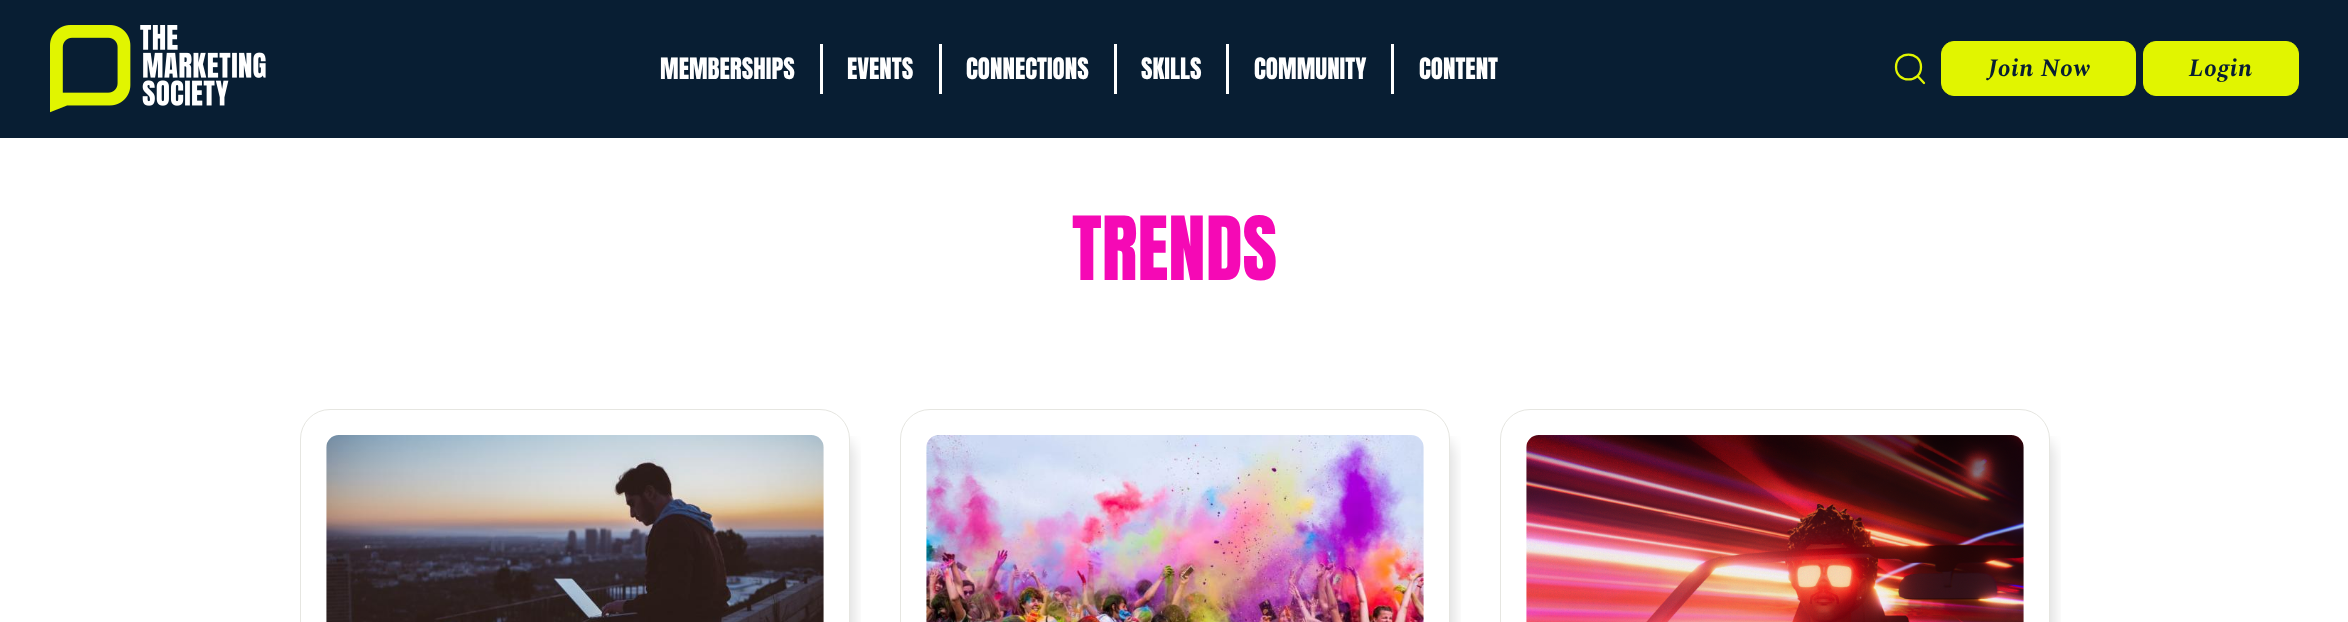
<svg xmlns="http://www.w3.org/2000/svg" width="2348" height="622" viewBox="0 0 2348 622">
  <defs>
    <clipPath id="clip1"><rect x="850" y="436" width="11" height="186"/></clipPath>
    <filter id="blur1" x="-50%" y="-200%" width="200%" height="500%"><feGaussianBlur stdDeviation="7"/></filter>
    <clipPath id="clip2"><rect x="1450" y="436" width="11" height="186"/></clipPath>
    <clipPath id="clip3"><rect x="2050" y="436" width="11" height="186"/></clipPath>
  </defs>
  <rect width="100%" height="100%" fill="#ffffff"/>
  <rect x="0" y="0" width="2348" height="138" fill="#081e33"/>
  <image x="50" y="25" width="216" height="88" href="img1.png"/>
  <text x="660" y="79" font-family="Anton" font-size="25" fill="#ffffff">MEMBERSHIPS</text>
  <rect x="820" y="44" width="3" height="50" fill="#ffffff"/>
  <text x="847" y="79" font-family="Anton" font-size="25" fill="#ffffff">EVENTS</text>
  <rect x="939" y="44" width="3" height="50" fill="#ffffff"/>
  <text x="966" y="79" font-family="Anton" font-size="25" fill="#ffffff">CONNECTIONS</text>
  <rect x="1114" y="44" width="3" height="50" fill="#ffffff"/>
  <text x="1141" y="79" font-family="Anton" font-size="25" fill="#ffffff">SKILLS</text>
  <rect x="1226" y="44" width="3" height="50" fill="#ffffff"/>
  <text x="1254" y="79" font-family="Anton" font-size="25" fill="#ffffff">COMMUNITY</text>
  <rect x="1391" y="44" width="3" height="50" fill="#ffffff"/>
  <text x="1419" y="79" font-family="Anton" font-size="25" fill="#ffffff">CONTENT</text>
  <path d="M1918 76.5L1924 83M1896 67C1896 83.5 1921 83.5 1921 67C1921 50.5 1896 50.5 1896 67Z" fill="none" stroke="#e1f500" stroke-width="2.3" stroke-linecap="round" stroke-linejoin="round"/>
  <rect x="1941.5" y="41.5" width="194" height="54" rx="12.5" fill="#e1f500" stroke="#e1f500"/>
  <text x="1988" y="76" font-family="Spectral" font-size="25" font-weight="bold" font-style="italic" letter-spacing="0.75" fill="#081e33">Join Now</text>
  <rect x="2143.5" y="41.5" width="155" height="54" rx="12.5" fill="#e1f500" stroke="#e1f500"/>
  <text x="2189" y="76" font-family="Spectral" font-size="25" font-weight="bold" font-style="italic" letter-spacing="0.75" fill="#081e33">Login</text>
  <text x="1072" y="280" font-family="Anton" font-size="75" fill="#f509b5">TRENDS</text>
  <g clip-path="url(#clip1)">
    <rect x="316" y="434" width="538" height="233" rx="24" fill="#000000" fill-opacity="0.13" filter="url(#blur1)"/>
  </g>
  <rect x="300.5" y="409.5" width="549" height="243" rx="29.5" fill="none" stroke="#e6e6e1"/>
  <image x="326" y="435" width="498" height="187" href="img2.png"/>
  <g clip-path="url(#clip2)">
    <rect x="916" y="434" width="538" height="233" rx="24" fill="#000000" fill-opacity="0.13" filter="url(#blur1)"/>
  </g>
  <rect x="900.5" y="409.5" width="549" height="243" rx="29.5" fill="none" stroke="#e6e6e1"/>
  <image x="926" y="435" width="498" height="187" href="img3.png"/>
  <g clip-path="url(#clip3)">
    <rect x="1516" y="434" width="538" height="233" rx="24" fill="#000000" fill-opacity="0.13" filter="url(#blur1)"/>
  </g>
  <rect x="1500.5" y="409.5" width="549" height="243" rx="29.5" fill="none" stroke="#e6e6e1"/>
  <image x="1526" y="435" width="498" height="187" href="img4.png"/>
</svg>
